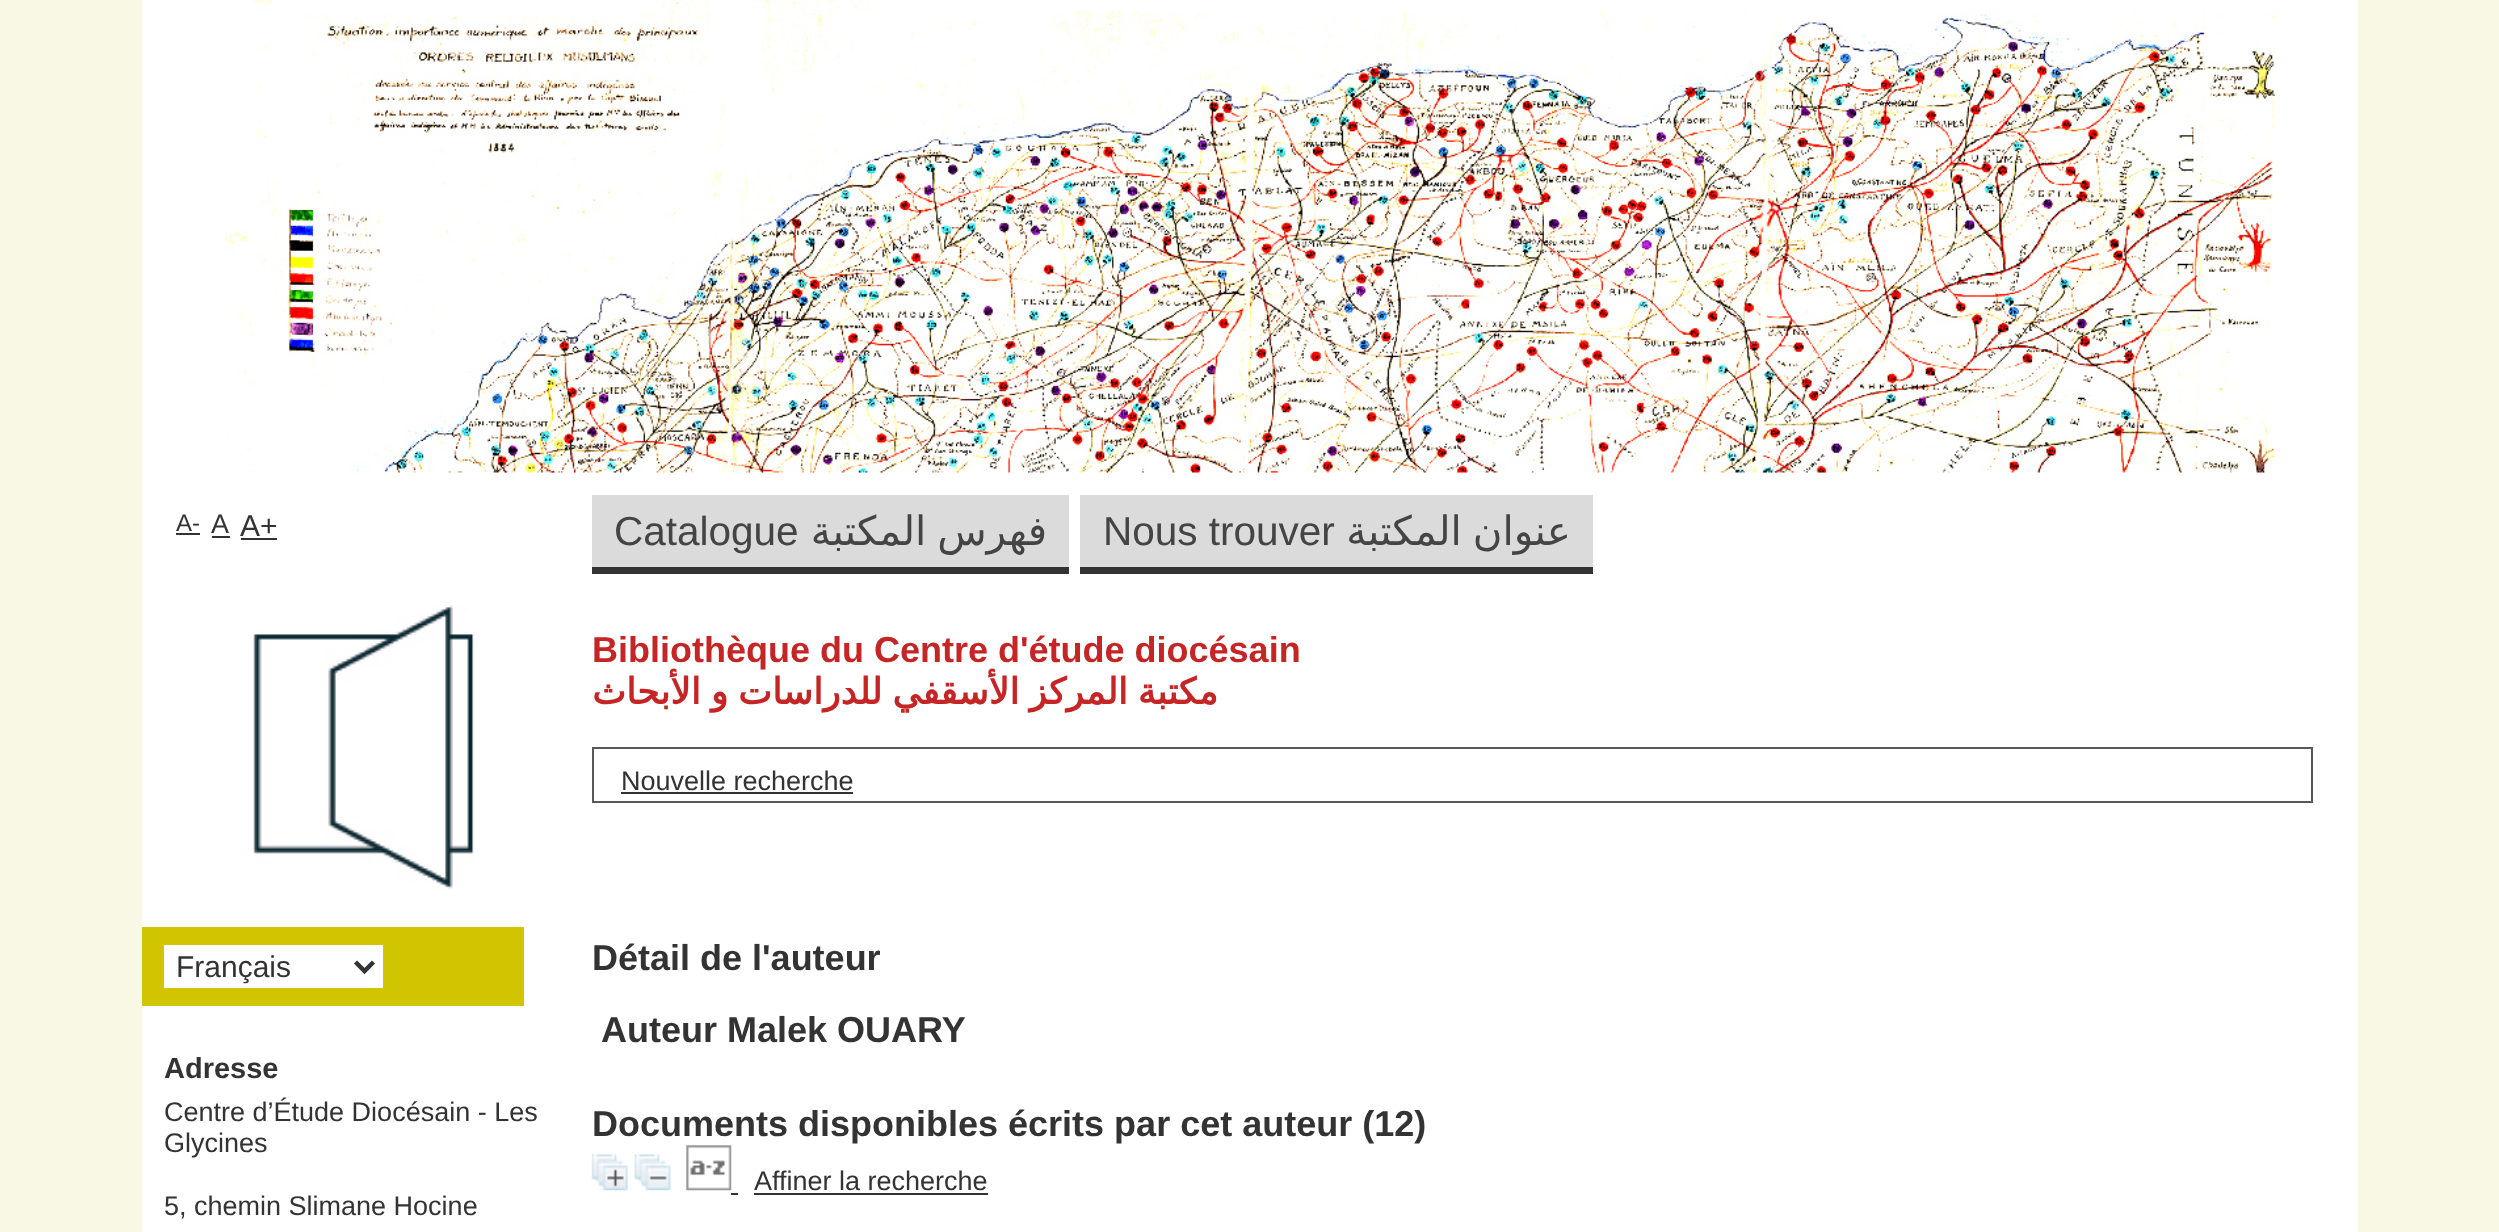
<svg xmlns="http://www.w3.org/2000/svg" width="2499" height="1232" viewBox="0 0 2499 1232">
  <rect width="100%" height="100%" fill="#f9f8e5"/>
  <rect x="142" y="0" width="2216" height="1232" fill="#ffffff"/>
  <text x="176" y="531" font-family="Liberation Sans" font-size="24" fill="#333333">A-</text>
  <rect x="176" y="533" width="24" height="2" fill="#333333"/>
  <text x="211" y="533" font-family="Liberation Sans" font-size="27" fill="#333333">A</text>
  <rect x="212" y="536" width="18" height="2" fill="#333333"/>
  <text x="240" y="536" font-family="Liberation Sans" font-size="30" fill="#333333">A+</text>
  <rect x="241" y="538" width="36" height="2" fill="#333333"/>
  <image x="253" y="605" width="221" height="285" href="img1.png"/>
  <rect x="142" y="927" width="382" height="79" fill="#d0c500"/>
  <rect x="164" y="945" width="219" height="43" fill="#ffffff"/>
  <path d="M355.5 962L364.5 971L373.5 962" fill="none" stroke="#333333" stroke-width="4.5"/>
  <text x="176" y="977" font-family="Liberation Sans" font-size="30" fill="#333333">Français</text>
  <text x="164" y="1078" font-family="Liberation Sans" font-size="29" font-weight="bold" fill="#333333">Adresse</text>
  <text x="164" y="1121" font-family="Liberation Sans" font-size="27" fill="#333333">Centre d’Étude Diocésain - Les</text>
  <text x="164" y="1152" font-family="Liberation Sans" font-size="27" fill="#333333">Glycines</text>
  <text x="164" y="1215" font-family="Liberation Sans" font-size="27" fill="#333333">5, chemin Slimane Hocine</text>
  <image x="225" y="0" width="2050" height="473" href="img2.png"/>
  <rect x="592" y="495" width="477" height="72" fill="#dbdbdb"/>
  <rect x="592" y="567" width="477" height="7" fill="#333333"/>
  <text x="614" y="545" font-family="Liberation Sans" font-size="40.5" fill="#444444">Catalogue</text>
  <text x="1047" y="545" word-spacing="-2" font-family="DejaVu Sans" font-size="40.5" direction="rtl" fill="#444444">فهرس المكتبة</text>
  <rect x="1080" y="495" width="513" height="72" fill="#dbdbdb"/>
  <rect x="1080" y="567" width="513" height="7" fill="#333333"/>
  <text x="1103" y="545" font-family="Liberation Sans" font-size="40.5" fill="#444444">Nous trouver</text>
  <text x="1571" y="545" word-spacing="-2" font-family="DejaVu Sans" font-size="40.5" direction="rtl" fill="#444444">عنوان المكتبة</text>
  <text x="592" y="662" font-family="Liberation Sans" font-size="36" font-weight="bold" fill="#c52524">Bibliothèque du Centre d'étude diocésain</text>
  <text x="1218" y="704" word-spacing="-1.5" font-family="DejaVu Sans" font-size="36" font-weight="bold" direction="rtl" fill="#c52524">مكتبة المركز الأسقفي للدراسات و الأبحاث</text>
  <rect x="593" y="748" width="1719" height="54" fill="none" stroke="#58585c" stroke-width="2"/>
  <text x="621" y="790" font-family="Liberation Sans" font-size="27" fill="#333333">Nouvelle recherche</text>
  <rect x="621" y="792" width="232" height="2" fill="#333333"/>
  <text x="592" y="970" font-family="Liberation Sans" font-size="36" font-weight="bold" fill="#333333">Détail de l'auteur</text>
  <text x="601" y="1042" font-family="Liberation Sans" font-size="36" font-weight="bold" fill="#333333">Auteur Malek OUARY</text>
  <text x="592" y="1136" font-family="Liberation Sans" font-size="36" font-weight="bold" fill="#333333">Documents disponibles écrits par cet auteur (12)</text>
  <image x="591" y="1154" width="37" height="37" href="img3.png"/>
  <image x="634" y="1154" width="37" height="37" href="img4.png"/>
  <image x="686" y="1145" width="46" height="46" href="img5.png"/>
  <text x="754" y="1190" font-family="Liberation Sans" font-size="27" fill="#333333">Affiner la recherche</text>
  <rect x="754" y="1193" width="234" height="2" fill="#333333"/>
  <rect x="731" y="1193" width="7" height="2" fill="#333333"/>
</svg>
